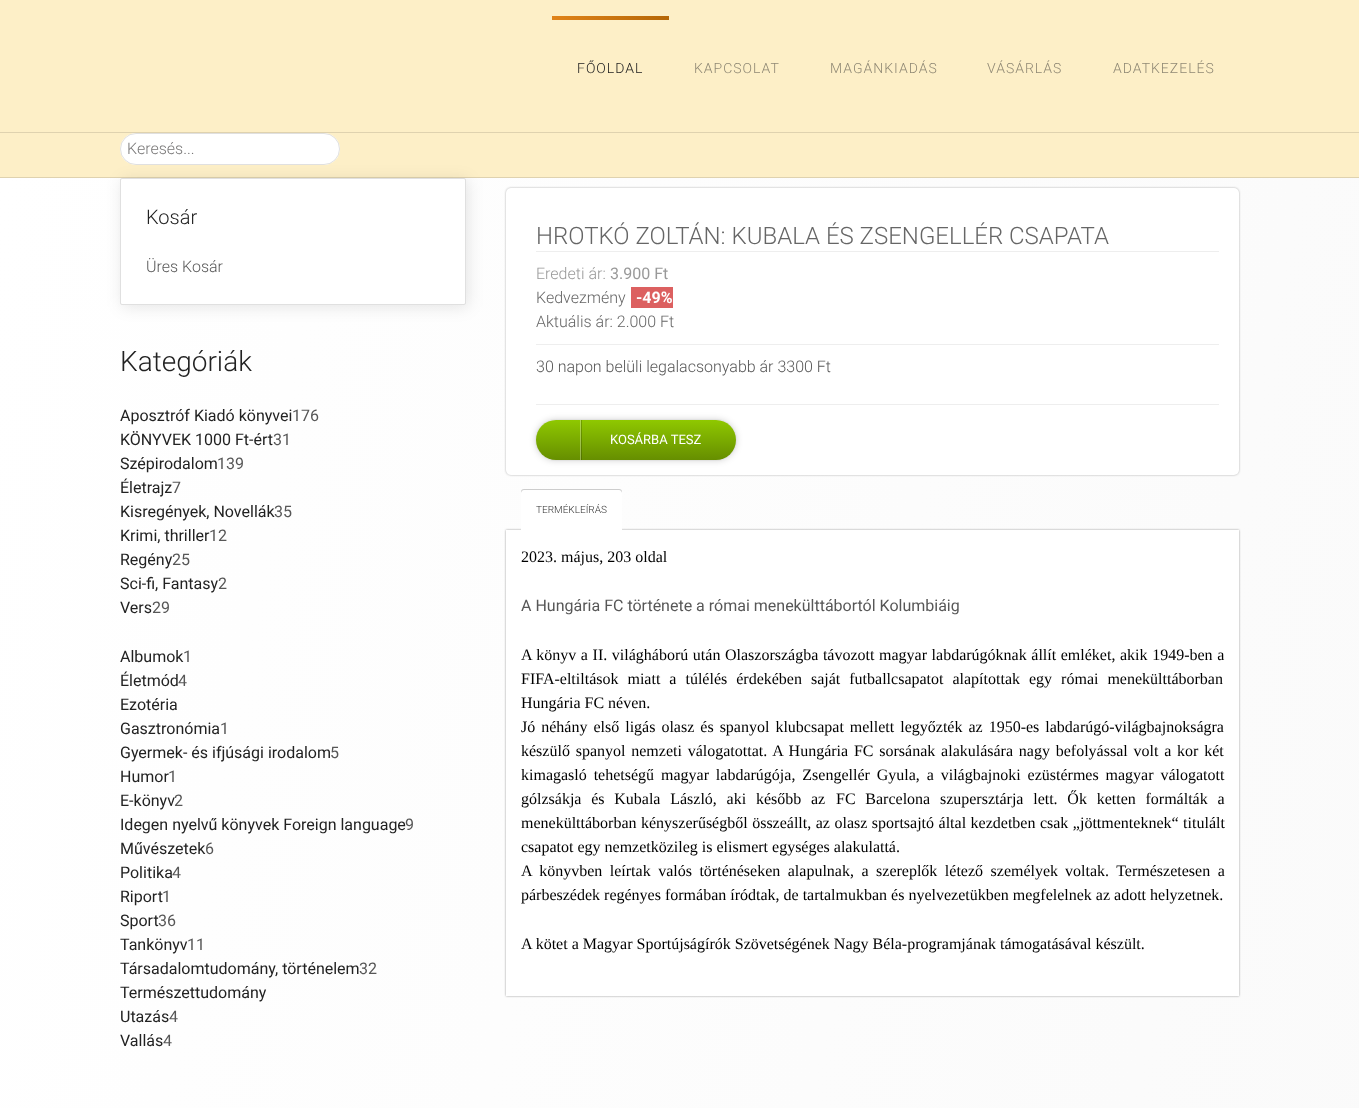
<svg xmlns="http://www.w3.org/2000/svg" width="1359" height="1108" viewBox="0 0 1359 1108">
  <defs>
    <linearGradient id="g1" gradientUnits="userSpaceOnUse" x1="552" y1="18" x2="669" y2="18"><stop offset="0" stop-color="#e08319"/><stop offset="1" stop-color="#b56707"/></linearGradient>
    <linearGradient id="g2" gradientUnits="userSpaceOnUse" x1="-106" y1="778" x2="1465" y2="1054"><stop offset="0" stop-color="#ffffff"/><stop offset="1" stop-color="#fafafa"/></linearGradient>
    <filter id="blur1" x="-50%" y="-200%" width="200%" height="500%"><feGaussianBlur stdDeviation="8"/></filter>
    <filter id="blur2" x="-50%" y="-200%" width="200%" height="500%"><feGaussianBlur stdDeviation="1"/></filter>
    <filter id="blur3" x="-50%" y="-200%" width="200%" height="500%"><feGaussianBlur stdDeviation="3.5"/></filter>
    <linearGradient id="g3" gradientUnits="userSpaceOnUse" x1="636" y1="420" x2="636" y2="460"><stop offset="0" stop-color="#8fc800"/><stop offset="1" stop-color="#668e00"/></linearGradient>
    <linearGradient id="g4" gradientUnits="userSpaceOnUse" x1="636" y1="420" x2="636" y2="460"><stop offset="0" stop-color="#72a000"/><stop offset="1" stop-color="#527200"/></linearGradient>
    <linearGradient id="g5" gradientUnits="userSpaceOnUse" x1="636" y1="420" x2="636" y2="460"><stop offset="0" stop-color="#b1d94d"/><stop offset="1" stop-color="#94b04d"/></linearGradient>
    <filter id="blur4" x="-50%" y="-200%" width="200%" height="500%"><feGaussianBlur stdDeviation="0.5"/></filter>
  </defs>
  <rect width="100%" height="100%" fill="#fdefc7"/>
  <rect x="0" y="132" width="1359" height="1" fill="#dfd2af"/>
  <rect x="552" y="16" width="117" height="4" fill="url(#g1)"/>
  <text x="577" y="73" font-family="Roboto" font-size="14" font-weight="300" letter-spacing="1" fill="#222222">FŐOLDAL</text>
  <text x="694" y="73" font-family="Roboto" font-size="14" font-weight="300" letter-spacing="1" fill="#908975">KAPCSOLAT</text>
  <text x="830" y="73" font-family="Roboto" font-size="14" font-weight="300" letter-spacing="1" fill="#908975">MAGÁNKIADÁS</text>
  <text x="987" y="73" font-family="Roboto" font-size="14" font-weight="300" letter-spacing="1" fill="#908975">VÁSÁRLÁS</text>
  <text x="1113" y="73" font-family="Roboto" font-size="14" font-weight="300" letter-spacing="1" fill="#908975">ADATKEZELÉS</text>
  <rect x="0" y="177" width="1359" height="1" fill="#dfd2af"/>
  <rect x="120" y="133" width="220" height="32" rx="16" fill="#ffffff"/>
  <rect x="120.5" y="133.5" width="219" height="31" rx="15.5" fill="none" stroke="#000000" stroke-opacity="0.12"/>
  <text x="127" y="154" font-family="Roboto" font-size="16" font-weight="300" fill="#787777">Keresés...</text>
  <rect x="0" y="178" width="1359" height="930" fill="url(#g2)"/>
  <rect x="122" y="180" width="346" height="127" rx="2" fill="#000000" fill-opacity="0.1" filter="url(#blur1)"/>
  <rect x="120.5" y="178.5" width="345" height="126" rx="1.5" fill="#ffffff" stroke="#e0e0e0"/>
  <text x="146" y="224" font-family="Roboto" font-size="20" font-weight="300" fill="#222222">Kosár</text>
  <text x="146" y="272" font-family="Roboto" font-size="16" font-weight="300" fill="#575757">Üres Kosár</text>
  <text x="120" y="371" font-family="Roboto" font-size="28" font-weight="300" fill="#222222">Kategóriák</text>
  <text x="120" y="421" font-family="Roboto" font-size="16" fill="#222222">Aposztróf Kiadó könyvei</text>
  <text x="292" y="421" font-family="Roboto" font-size="16" fill="#575757">176</text>
  <text x="120" y="445" font-family="Roboto" font-size="16" fill="#222222">KÖNYVEK 1000 Ft-ért</text>
  <text x="273" y="445" font-family="Roboto" font-size="16" fill="#575757">31</text>
  <text x="120" y="469" font-family="Roboto" font-size="16" fill="#222222">Szépirodalom</text>
  <text x="217" y="469" font-family="Roboto" font-size="16" fill="#575757">139</text>
  <text x="120" y="493" font-family="Roboto" font-size="16" fill="#222222">Életrajz</text>
  <text x="172" y="493" font-family="Roboto" font-size="16" fill="#575757">7</text>
  <text x="120" y="517" font-family="Roboto" font-size="16" fill="#222222">Kisregények, Novellák</text>
  <text x="274" y="517" font-family="Roboto" font-size="16" fill="#575757">35</text>
  <text x="120" y="541" font-family="Roboto" font-size="16" fill="#222222">Krimi, thriller</text>
  <text x="209" y="541" font-family="Roboto" font-size="16" fill="#575757">12</text>
  <text x="120" y="565" font-family="Roboto" font-size="16" fill="#222222">Regény</text>
  <text x="172" y="565" font-family="Roboto" font-size="16" fill="#575757">25</text>
  <text x="120" y="589" font-family="Roboto" font-size="16" fill="#222222">Sci-fi, Fantasy</text>
  <text x="218" y="589" font-family="Roboto" font-size="16" fill="#575757">2</text>
  <text x="120" y="613" font-family="Roboto" font-size="16" fill="#222222">Vers</text>
  <text x="152" y="613" font-family="Roboto" font-size="16" fill="#575757">29</text>
  <text x="120" y="662" font-family="Roboto" font-size="16" fill="#222222">Albumok</text>
  <text x="183" y="662" font-family="Roboto" font-size="16" fill="#575757">1</text>
  <text x="120" y="686" font-family="Roboto" font-size="16" fill="#222222">Életmód</text>
  <text x="178" y="686" font-family="Roboto" font-size="16" fill="#575757">4</text>
  <text x="120" y="710" font-family="Roboto" font-size="16" fill="#222222">Ezotéria</text>
  <text x="120" y="734" font-family="Roboto" font-size="16" fill="#222222">Gasztronómia</text>
  <text x="220" y="734" font-family="Roboto" font-size="16" fill="#575757">1</text>
  <text x="120" y="758" font-family="Roboto" font-size="16" fill="#222222">Gyermek- és ifjúsági irodalom</text>
  <text x="330" y="758" font-family="Roboto" font-size="16" fill="#575757">5</text>
  <text x="120" y="782" font-family="Roboto" font-size="16" fill="#222222">Humor</text>
  <text x="168" y="782" font-family="Roboto" font-size="16" fill="#575757">1</text>
  <text x="120" y="806" font-family="Roboto" font-size="16" fill="#222222">E-könyv</text>
  <text x="174" y="806" font-family="Roboto" font-size="16" fill="#575757">2</text>
  <text x="120" y="830" font-family="Roboto" font-size="16" fill="#222222">Idegen nyelvű könyvek Foreign language</text>
  <text x="405" y="830" font-family="Roboto" font-size="16" fill="#575757">9</text>
  <text x="120" y="854" font-family="Roboto" font-size="16" fill="#222222">Művészetek</text>
  <text x="205" y="854" font-family="Roboto" font-size="16" fill="#575757">6</text>
  <text x="120" y="878" font-family="Roboto" font-size="16" fill="#222222">Politika</text>
  <text x="172" y="878" font-family="Roboto" font-size="16" fill="#575757">4</text>
  <text x="120" y="902" font-family="Roboto" font-size="16" fill="#222222">Riport</text>
  <text x="162" y="902" font-family="Roboto" font-size="16" fill="#575757">1</text>
  <text x="120" y="926" font-family="Roboto" font-size="16" fill="#222222">Sport</text>
  <text x="158" y="926" font-family="Roboto" font-size="16" fill="#575757">36</text>
  <text x="120" y="950" font-family="Roboto" font-size="16" fill="#222222">Tankönyv</text>
  <text x="187" y="950" font-family="Roboto" font-size="16" fill="#575757">11</text>
  <text x="120" y="974" font-family="Roboto" font-size="16" fill="#222222">Társadalomtudomány, történelem</text>
  <text x="359" y="974" font-family="Roboto" font-size="16" fill="#575757">32</text>
  <text x="120" y="998" font-family="Roboto" font-size="16" fill="#222222">Természettudomány</text>
  <text x="120" y="1022" font-family="Roboto" font-size="16" fill="#222222">Utazás</text>
  <text x="169" y="1022" font-family="Roboto" font-size="16" fill="#575757">4</text>
  <text x="120" y="1046" font-family="Roboto" font-size="16" fill="#222222">Vallás</text>
  <text x="163" y="1046" font-family="Roboto" font-size="16" fill="#575757">4</text>
  <rect x="506" y="188" width="733" height="287" rx="5" fill="#000000" fill-opacity="0.3" filter="url(#blur2)"/>
  <rect x="506" y="188" width="733" height="287" rx="5" fill="#ffffff"/>
  <text x="536" y="244" font-family="Roboto" font-size="24" font-weight="300" fill="#666666">HROTKÓ ZOLTÁN: KUBALA ÉS ZSENGELLÉR CSAPATA</text>
  <rect x="536" y="251" width="683" height="1" fill="#eeeeee"/>
  <text x="536" y="279" font-family="Roboto" font-size="16" font-weight="300" fill="#999999">Eredeti ár:</text>
  <text x="610" y="279" font-family="Roboto" font-size="16" fill="#999999">3.900 Ft</text>
  <text x="536" y="303" font-family="Roboto" font-size="16" font-weight="300" fill="#666666">Kedvezmény</text>
  <rect x="631" y="287" width="42" height="21" fill="#dc6060"/>
  <text x="636" y="303" font-family="Roboto" font-size="16" font-weight="bold" fill="#ffffff">-49%</text>
  <text x="536" y="327" font-family="Roboto" font-size="16" font-weight="300" fill="#666666">Aktuális ár: 2.000 Ft</text>
  <rect x="536" y="344" width="683" height="1" fill="#eeeeee"/>
  <text x="536" y="372" font-family="Roboto" font-size="16" font-weight="300" fill="#575757">30 napon belüli legalacsonyabb ár 3300 Ft</text>
  <rect x="536" y="404" width="683" height="1" fill="#eeeeee"/>
  <rect x="535.5" y="419.5" width="201" height="41" rx="20.5" fill="none" stroke="#f8f8f8"/>
  <rect x="536" y="420" width="200" height="40" rx="20" fill="#000000" fill-opacity="0.2" filter="url(#blur3)"/>
  <rect x="536" y="420" width="200" height="40" rx="20" fill="url(#g3)"/>
  <rect x="581" y="420" width="1" height="40" fill="url(#g4)"/>
  <rect x="580" y="420" width="1" height="40" fill="url(#g5)"/>
  <text x="610" y="444" font-family="Roboto" font-size="13" fill="#ffffff">KOSÁRBA TESZ</text>
  <rect x="506" y="530" width="733" height="466" fill="#000000" fill-opacity="0.4" filter="url(#blur2)"/>
  <rect x="506" y="530" width="733" height="466" fill="#ffffff"/>
  <rect x="521" y="489" width="101" height="40" rx="3" fill="#cdcdcd" filter="url(#blur4)"/>
  <path d="M524 490H619C620.5 490 622 491.5 622 493V530H521V493C521 491.5 522.5 490 524 490Z" fill="#ffffff"/>
  <text x="536" y="513" font-family="Roboto" font-size="10" font-weight="300" fill="#333333">TERMÉKLEÍRÁS</text>
  <text x="521" y="562" font-family="Liberation Serif" font-size="16" fill="#000000">2023. május, 203 oldal</text>
  <text x="521" y="611" font-family="Roboto" font-size="16" fill="#575757">A Hungária FC története a római menekülttábortól Kolumbiáig</text>
  <text x="521" y="660" word-spacing="0.6" font-family="Liberation Serif" font-size="16" fill="#000000">A könyv a II. világháború után Olaszországba távozott magyar labdarúgóknak állít emléket, akik 1949-ben a</text>
  <text x="521" y="684" word-spacing="5" font-family="Liberation Serif" font-size="16" fill="#000000">FIFA-eltiltások miatt a túlélés érdekében saját futballcsapatot alapítottak egy római menekülttáborban</text>
  <text x="521" y="708" font-family="Liberation Serif" font-size="16" fill="#000000">Hungária FC néven.</text>
  <text x="521" y="732" word-spacing="2" font-family="Liberation Serif" font-size="16" fill="#000000">Jó néhány első ligás olasz és spanyol klubcsapat mellett legyőzték az 1950-es labdarúgó-világbajnokságra</text>
  <text x="521" y="756" word-spacing="1.8" font-family="Liberation Serif" font-size="16" fill="#000000">készülő spanyol nemzeti válogatottat. A Hungária FC sorsának alakulására nagy befolyással volt a kor két</text>
  <text x="521" y="780" word-spacing="2.9" font-family="Liberation Serif" font-size="16" fill="#000000">kimagasló tehetségű magyar labdarúgója, Zsengellér Gyula, a világbajnoki ezüstérmes magyar válogatott</text>
  <text x="521" y="804" word-spacing="5.75" font-family="Liberation Serif" font-size="16" fill="#000000">gólzsákja és Kubala László, aki később az</text>
  <text x="836" y="804" word-spacing="5.75" font-family="Liberation Serif" font-size="16" fill="#000000">FC Barcelona szupersztárja lett. Ők ketten formálták a</text>
  <text x="521" y="828" word-spacing="0.5" font-family="Liberation Serif" font-size="16" fill="#000000">menekülttáborban kényszerűségből összeállt, az olasz sportsajtó által kezdetben csak „jöttmenteknek“ titulált</text>
  <text x="521" y="852" font-family="Liberation Serif" font-size="16" fill="#000000">csapatot egy nemzetközileg is elismert egységes alakulattá.</text>
  <text x="521" y="876" word-spacing="3.5" font-family="Liberation Serif" font-size="16" fill="#000000">A könyvben leírtak valós történéseken alapulnak, a szereplők létező személyek</text>
  <text x="1065" y="876" word-spacing="3.5" font-family="Liberation Serif" font-size="16" fill="#000000">voltak. Természetesen a</text>
  <text x="521" y="900" font-family="Liberation Serif" font-size="16" fill="#000000">párbeszédek regényes formában íródtak, de tartalmukban és nyelvezetükben megfelelnek az adott helyzetnek.</text>
  <text x="521" y="949" font-family="Liberation Serif" font-size="16" fill="#000000">A kötet a Magyar Sportújságírók Szövetségének Nagy Béla-programjának támogatásával készült.</text>
</svg>
